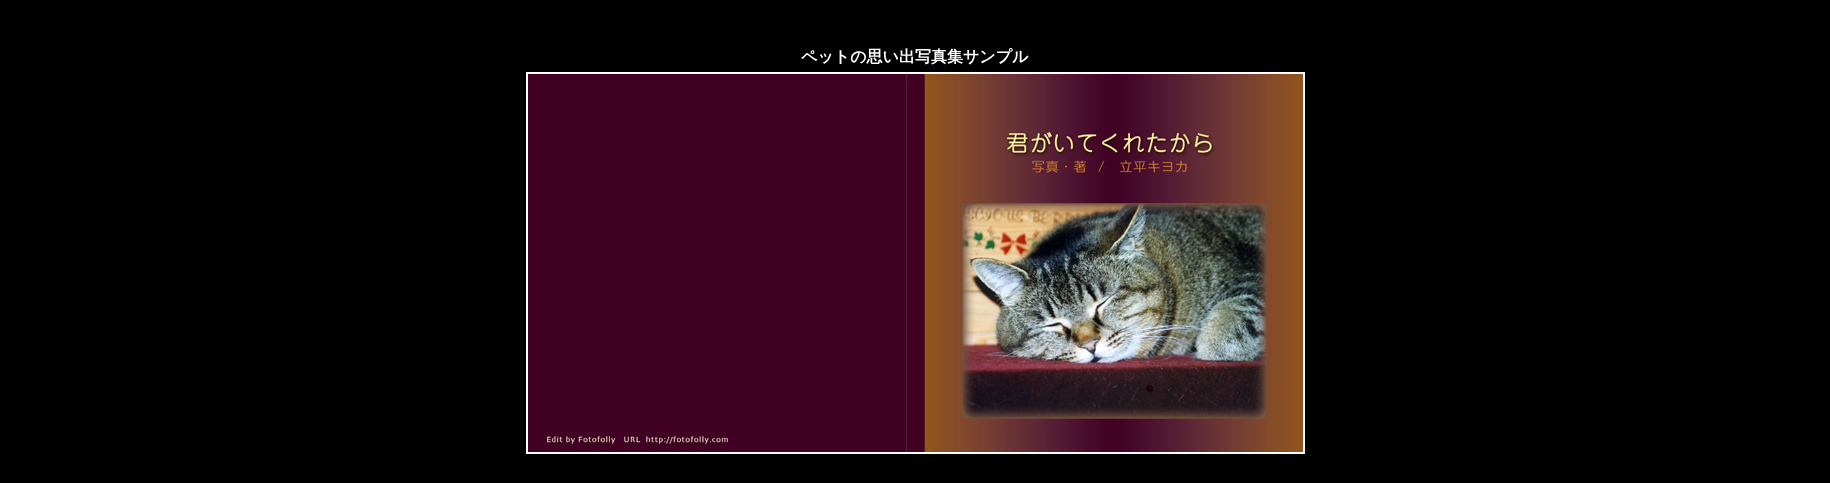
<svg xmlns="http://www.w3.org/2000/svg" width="1830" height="483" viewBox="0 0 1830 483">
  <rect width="100%" height="100%" fill="#000000"/>
  <text x="801" y="62" font-family="WenQuanYi Zen Hei" font-size="16" font-weight="bold" fill="#ffffff">ペットの思い出写真集サンプル</text>
  <rect x="526.5" y="72.5" width="778" height="381" fill="none" stroke="#ffffff"/>
  <rect x="527.5" y="73.5" width="776" height="379" fill="none" stroke="#ffffff"/>
  <image x="528" y="74" width="775" height="378" href="img1.png"/>
</svg>
